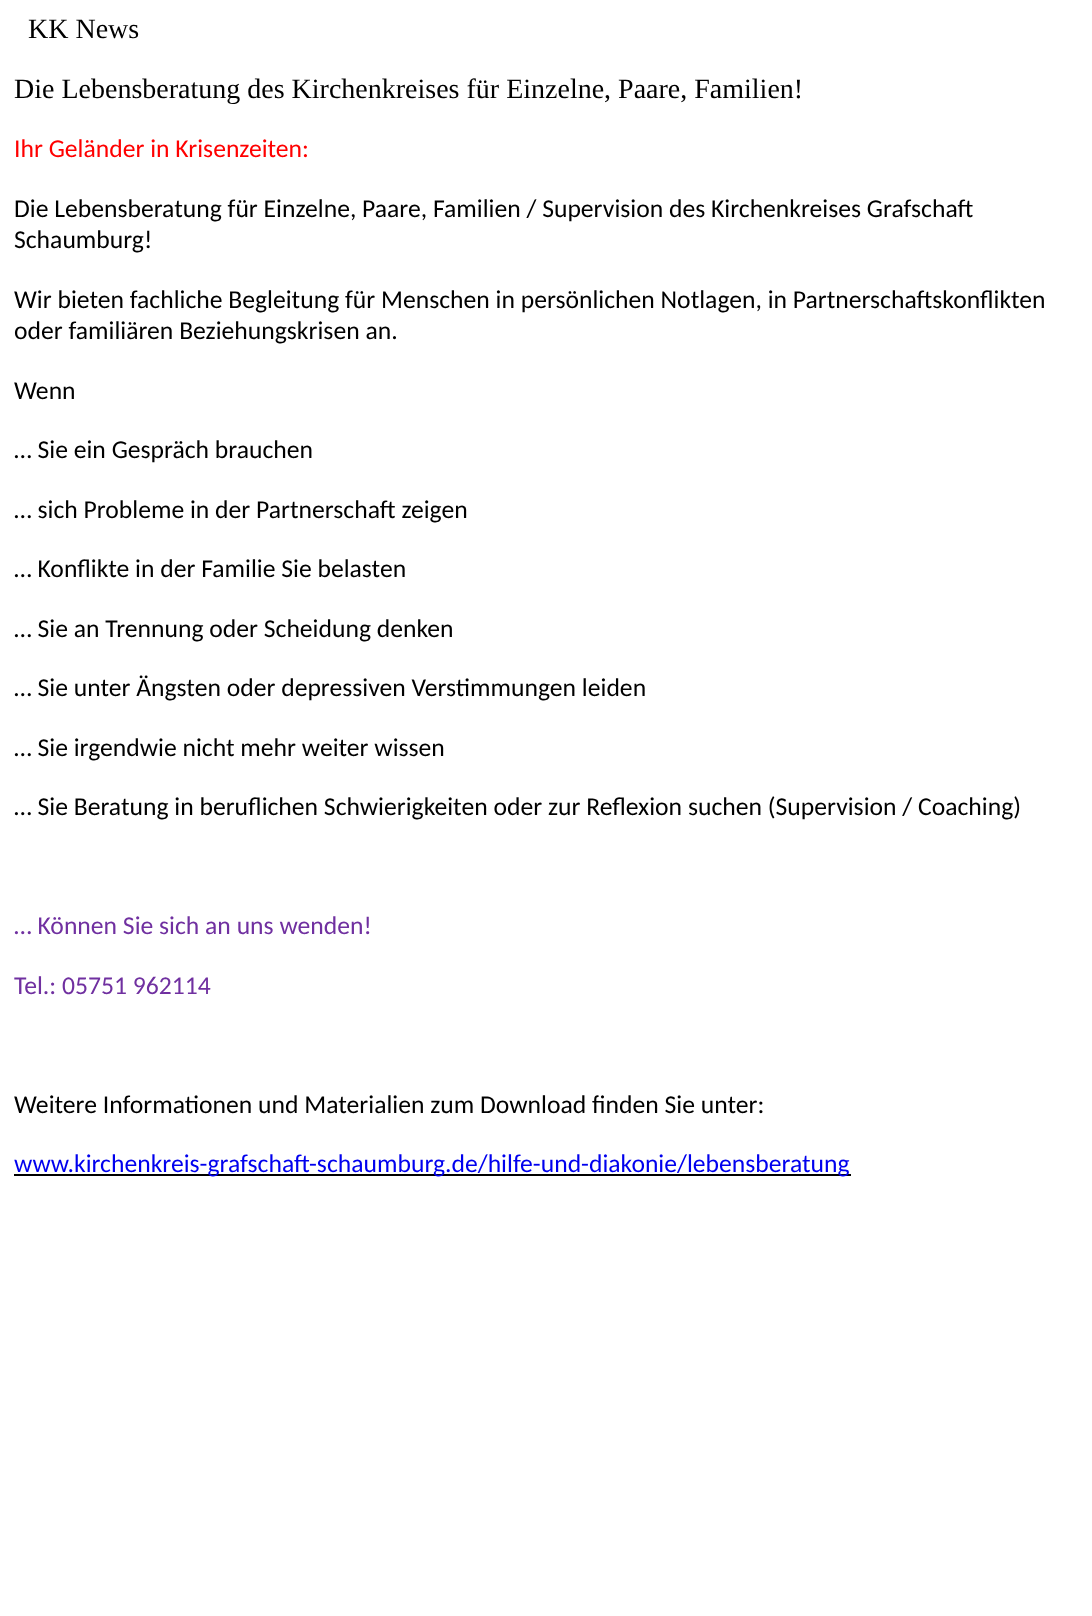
<svg xmlns="http://www.w3.org/2000/svg" width="1092" height="1616" viewBox="0 0 1092 1616">
  <rect width="100%" height="100%" fill="#ffffff"/>
  <text x="28" y="38" font-family="Liberation Serif" font-size="28" fill="#000000">KK News</text>
  <text x="14" y="98" font-family="Liberation Serif" font-size="28" fill="#000000">Die Lebensberatung des Kirchenkreises für Einzelne, Paare, Familien!</text>
  <text x="14" y="157" font-family="Carlito" font-size="25.65" fill="#ff0000">Ihr Geländer in Krisenzeiten:</text>
  <text x="14" y="217" font-family="Carlito" font-size="25.65" fill="#000000">Die Lebensberatung für Einzelne, Paare, Familien / Supervision des Kirchenkreises Grafschaft</text>
  <text x="14" y="248" font-family="Carlito" font-size="25.65" fill="#000000">Schaumburg!</text>
  <text x="14" y="308" font-family="Carlito" font-size="25.65" fill="#000000">Wir bieten fachliche Begleitung für Menschen in persönlichen Notlagen, in Partnerschaftskonflikten</text>
  <text x="14" y="339" font-family="Carlito" font-size="25.65" fill="#000000">oder familiären Beziehungskrisen an.</text>
  <text x="14" y="399" font-family="Carlito" font-size="25.65" fill="#000000">Wenn</text>
  <text x="14" y="458" font-family="Carlito" font-size="25.65" fill="#000000">… Sie ein Gespräch brauchen</text>
  <text x="14" y="518" font-family="Carlito" font-size="25.65" fill="#000000">… sich Probleme in der Partnerschaft zeigen</text>
  <text x="14" y="577" font-family="Carlito" font-size="25.65" fill="#000000">… Konflikte in der Familie Sie belasten</text>
  <text x="14" y="637" font-family="Carlito" font-size="25.65" fill="#000000">… Sie an Trennung oder Scheidung denken</text>
  <text x="14" y="696" font-family="Carlito" font-size="25.65" fill="#000000">… Sie unter Ängsten oder depressiven Verstimmungen leiden</text>
  <text x="14" y="756" font-family="Carlito" font-size="25.65" fill="#000000">… Sie irgendwie nicht mehr weiter wissen</text>
  <text x="14" y="815" font-family="Carlito" font-size="25.65" fill="#000000">… Sie Beratung in beruflichen Schwierigkeiten oder zur Reflexion suchen (Supervision / Coaching)</text>
  <text x="14" y="934" font-family="Carlito" font-size="25.65" fill="#7030a0">… Können Sie sich an uns wenden!</text>
  <text x="14" y="994" font-family="Carlito" font-size="25.65" fill="#7030a0">Tel.: 05751 962114</text>
  <text x="14" y="1113" font-family="Carlito" font-size="25.65" fill="#000000">Weitere Informationen und Materialien zum Download finden Sie unter:</text>
  <rect x="14" y="1174" width="837" height="2" fill="#000000"/>
  <text x="14" y="1172" font-family="Carlito" font-size="25.65" fill="#0000ee">www.kirchenkreis-grafschaft-schaumburg.de/hilfe-und-diakonie/lebensberatung</text>
</svg>
